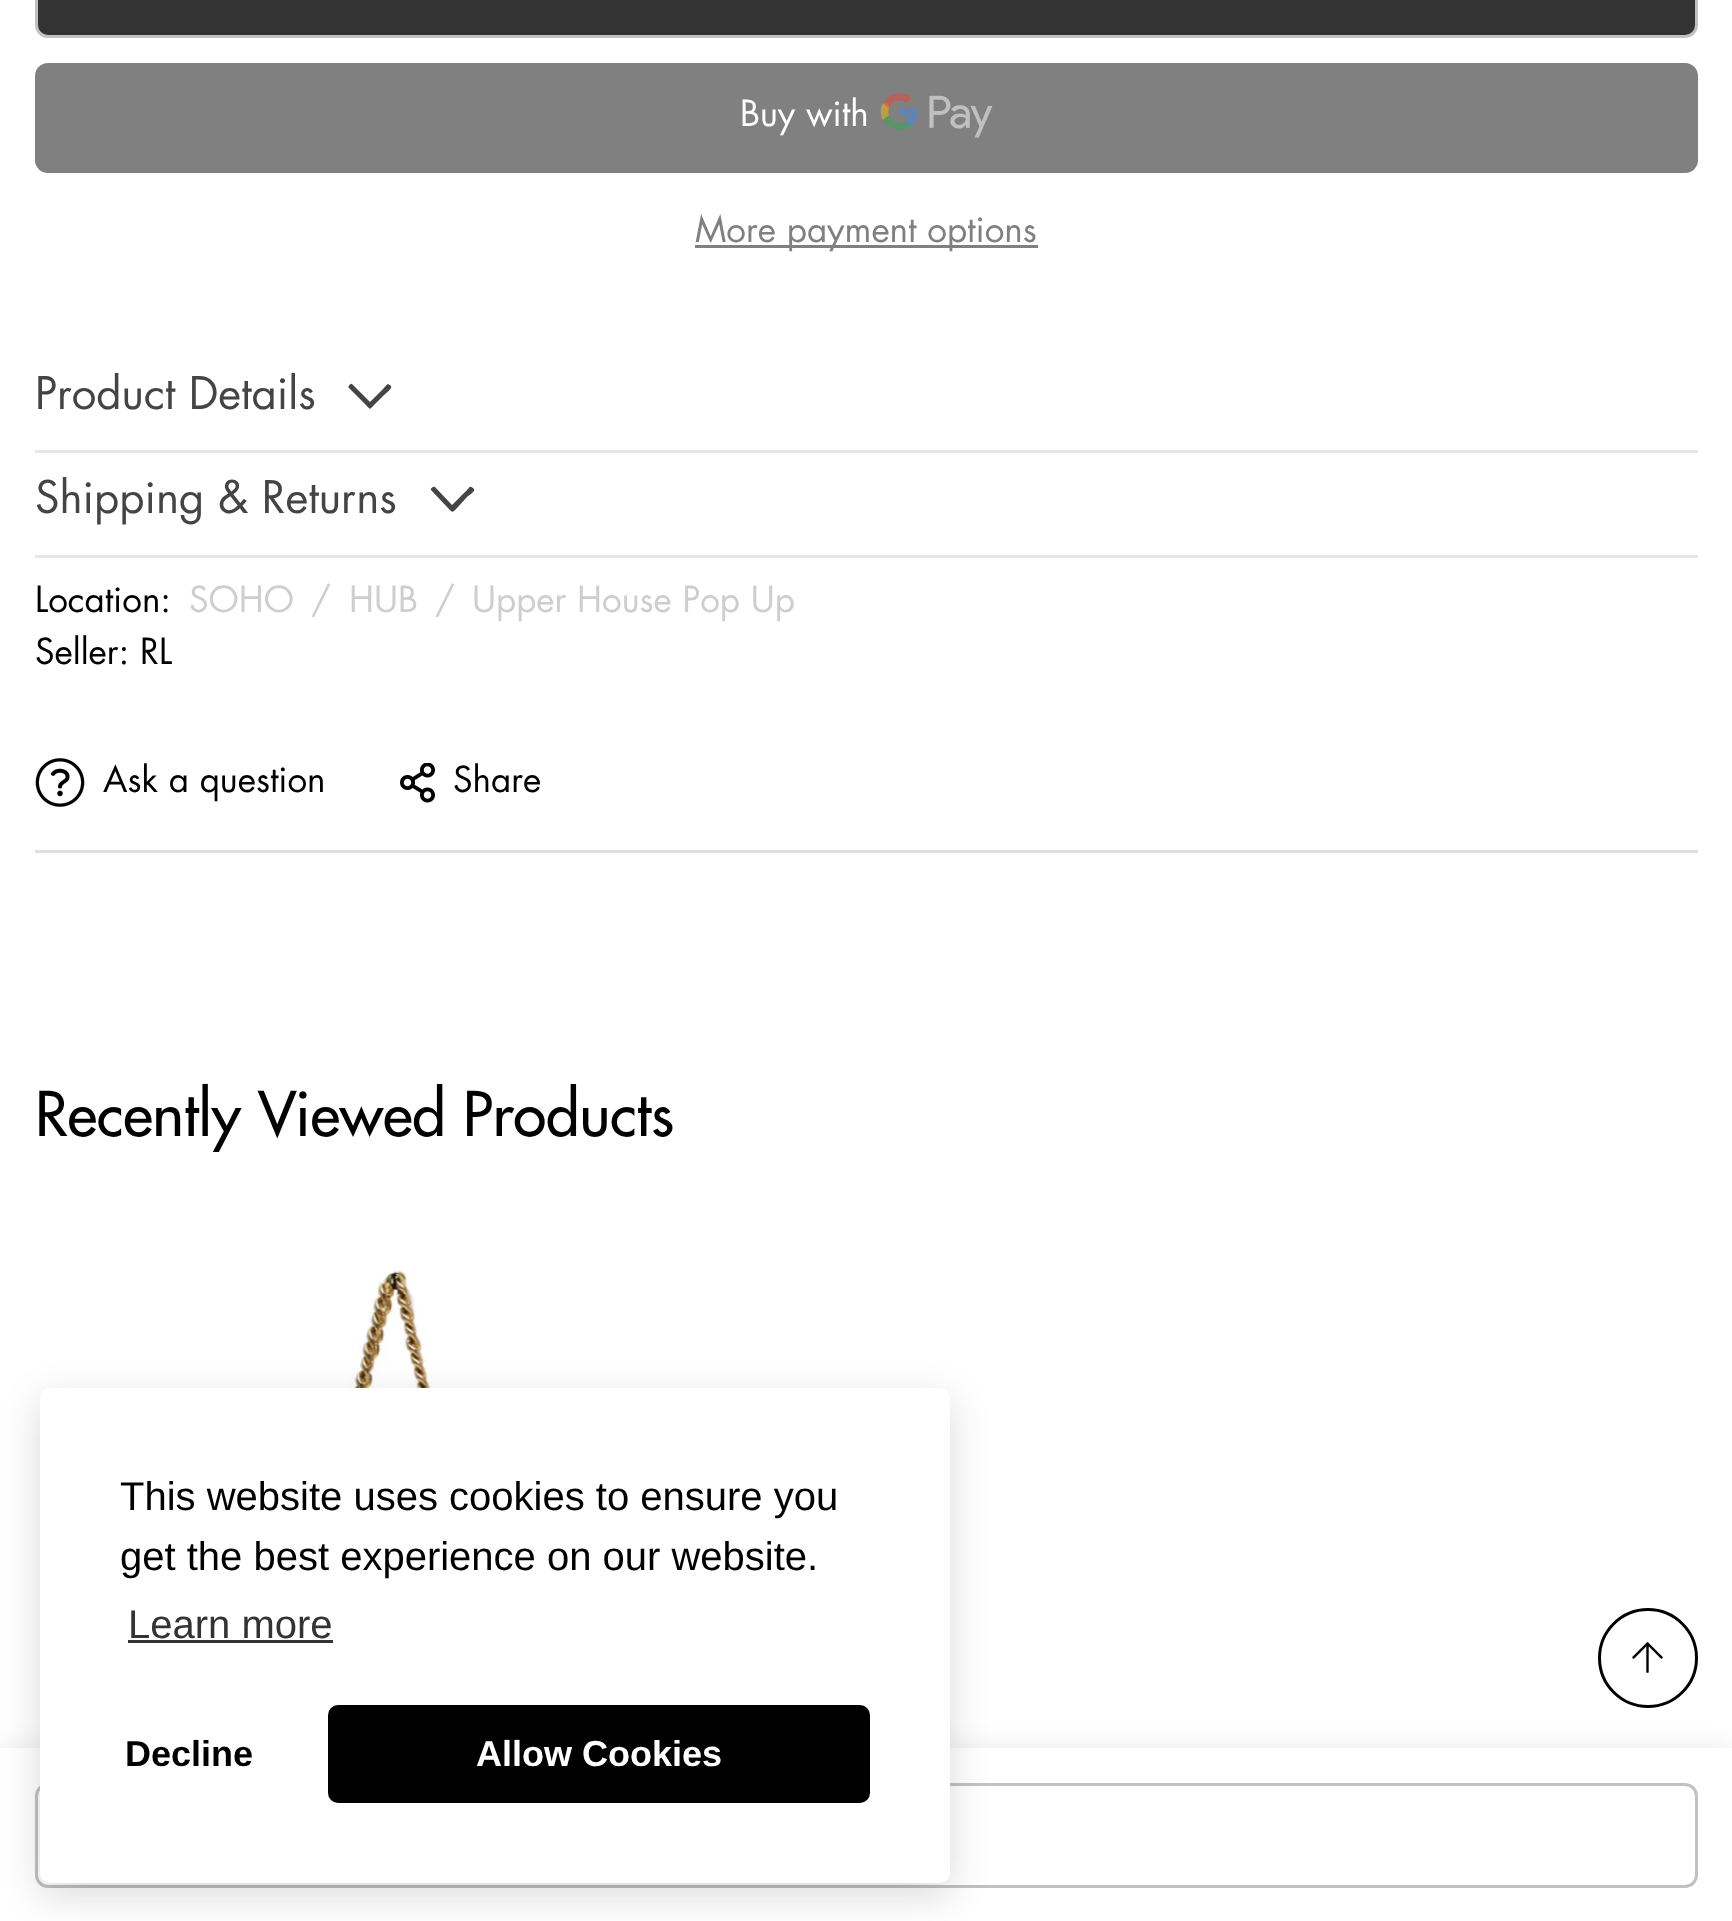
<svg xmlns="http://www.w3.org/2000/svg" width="1732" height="1921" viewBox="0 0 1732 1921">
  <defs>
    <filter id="blur1" x="-50%" y="-200%" width="200%" height="500%"><feGaussianBlur stdDeviation="12.5"/></filter>
    <filter id="blur2" x="-50%" y="-200%" width="200%" height="500%"><feGaussianBlur stdDeviation="19"/></filter>
  </defs>
  <rect width="100%" height="100%" fill="#ffffff"/>
  <rect x="36.5" y="-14.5" width="1660" height="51" rx="11.5" fill="#333333" stroke="#c1c1c1" stroke-width="3"/>
  <rect x="35" y="63" width="1663" height="110" rx="13" fill="#808080"/>
  <text x="740" y="126" font-family="Futura" font-size="35" fill="#ffffff">Buy with</text>
  <image x="880" y="93" width="113" height="45" href="img1.png"/>
  <rect x="695" y="245" width="343" height="3" fill="#808080"/>
  <text x="695" y="242" font-family="Futura" font-size="35" fill="#808080">More payment options</text>
  <text x="35" y="409" font-family="Futura" font-size="43.75" fill="#444444">Product Details</text>
  <path d="M391 386C387 382 387 385 382 390L370 402L352 384C351 383 347 387 349 388L366 405C371 410 369 410 374 405L384 395C385 394 393 388 391 386Z" fill="#444444"/>
  <rect x="35" y="450" width="1663" height="3" fill="#e5e7eb"/>
  <text x="35" y="513" font-family="Futura" font-size="43.75" fill="#444444">Shipping &amp; Returns</text>
  <path d="M474 489C469 484 470 488 464 493L452 505L435 487C433 486 430 489 431 490L448 508C453 513 452 513 457 508L467 497C468 496 476 491 474 489Z" fill="#444444"/>
  <rect x="35" y="555" width="1663" height="3" fill="#e5e7eb"/>
  <text x="35" y="612" font-family="Futura" font-size="35" fill="#000000">Location:</text>
  <text x="189" y="612" font-family="Futura" font-size="35" fill="#cecece">SOHO</text>
  <text x="311" y="612" font-family="Futura" font-size="35" fill="#cecece">/</text>
  <text x="349" y="612" font-family="Futura" font-size="35" fill="#cecece">HUB</text>
  <text x="435" y="612" font-family="Futura" font-size="35" fill="#cecece">/</text>
  <text x="472" y="612" font-family="Futura" font-size="35" fill="#cecece">Upper House Pop Up</text>
  <text x="35" y="664" font-family="Futura" font-size="35" fill="#000000">Seller: RL</text>
  <rect x="35" y="850" width="1663" height="3" fill="#dedede"/>
  <image x="35" y="758" width="50" height="49" href="img2.png"/>
  <text x="103" y="792" font-family="Futura" font-size="35" fill="#000000">Ask a question</text>
  <image x="400" y="763" width="35" height="40" href="img3.png"/>
  <text x="453" y="792" font-family="Futura" font-size="35" fill="#000000">Share</text>
  <rect x="0" y="1748" width="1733" height="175" fill="#000000" fill-opacity="0.09" filter="url(#blur1)"/>
  <rect x="0" y="1748" width="1732" height="173" fill="#ffffff"/>
  <rect x="36.5" y="1784.5" width="1660" height="102" rx="11.5" fill="none" stroke="#c1c1c1" stroke-width="3"/>
  <text x="35" y="1136" font-family="Futura" font-size="60" font-weight="500" fill="#000000">Recently Viewed Products</text>
  <image x="160" y="1270" width="437" height="118" href="img4.png"/>
  <rect x="40" y="1400" width="910" height="495" rx="10" fill="#000000" fill-opacity="0.15" filter="url(#blur2)"/>
  <rect x="40" y="1388" width="910" height="495" rx="10" fill="#ffffff"/>
  <text x="120" y="1510" font-family="Liberation Sans" font-size="40" fill="#000000">This website uses cookies to ensure you</text>
  <text x="120" y="1570" font-family="Liberation Sans" font-size="40" fill="#000000">get the best experience on our website.</text>
  <text x="128" y="1638" font-family="Liberation Sans" font-size="40" fill="#333333">Learn more</text>
  <rect x="128" y="1640" width="205" height="3" fill="#333333"/>
  <text x="125" y="1766" font-family="Liberation Sans" font-size="36" font-weight="bold" fill="#000000">Decline</text>
  <rect x="328" y="1705" width="542" height="98" rx="10" fill="#000000"/>
  <text x="476" y="1766" font-family="Liberation Sans" font-size="36" font-weight="bold" fill="#ffffff">Allow Cookies</text>
  <circle cx="1648" cy="1658" r="48.5" fill="none" stroke="#000000" stroke-width="3"/>
  <image x="1632" y="1642" width="31" height="31" href="img5.png"/>
</svg>
